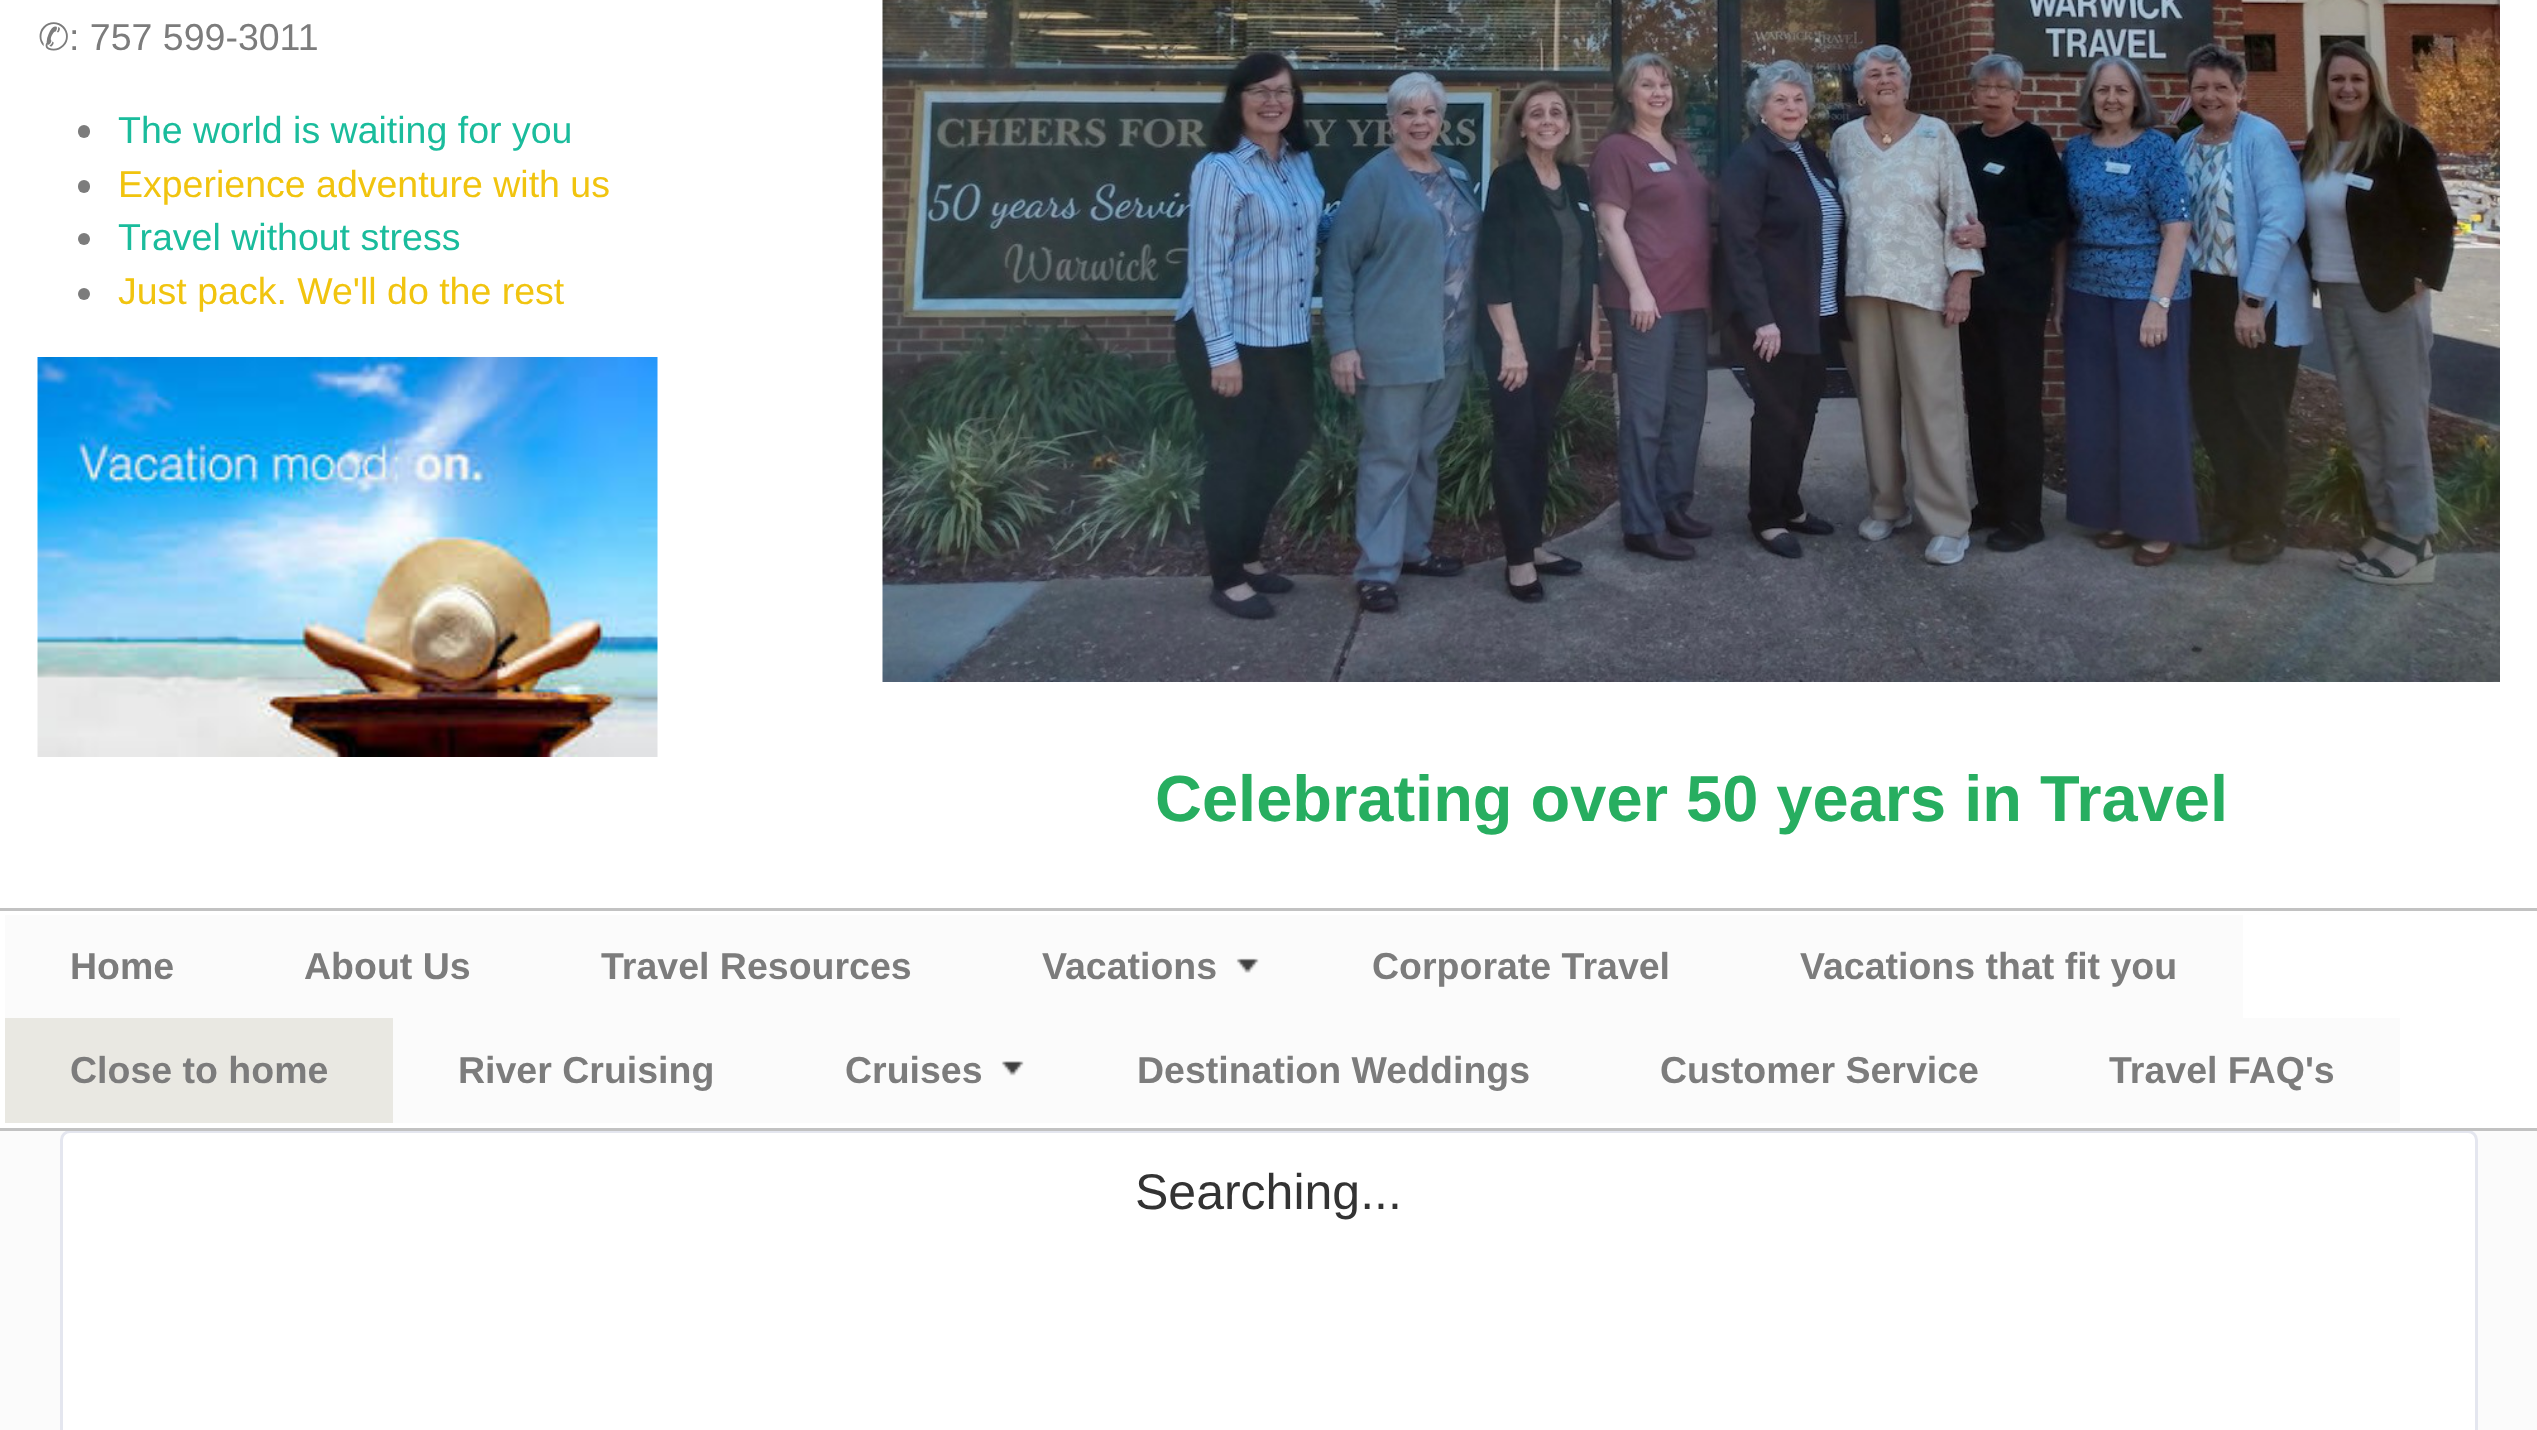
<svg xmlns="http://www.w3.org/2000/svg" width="2537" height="1430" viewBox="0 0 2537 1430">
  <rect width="100%" height="100%" fill="#ffffff"/>
  <text x="38" y="50" font-family="DejaVu Sans" font-size="37.5" fill="#7c7c7c">✆</text>
  <text x="69" y="50" font-family="Liberation Sans" font-size="37.5" fill="#7c7c7c">: 757 599-3011</text>
  <rect x="78" y="125" width="12" height="13" rx="6" fill="#7c7c7c"/>
  <text x="118" y="143" font-family="Liberation Sans" font-size="37.5" fill="#1abc9c">The world is waiting for you</text>
  <rect x="78" y="180" width="12" height="13" rx="6" fill="#7c7c7c"/>
  <text x="118" y="197" font-family="Liberation Sans" font-size="37.5" fill="#f1c40f">Experience adventure with us</text>
  <circle cx="84" cy="239" r="6" fill="#7c7c7c"/>
  <text x="118" y="250" font-family="Liberation Sans" font-size="37.5" fill="#1abc9c">Travel without stress</text>
  <circle cx="84" cy="294" r="6" fill="#7c7c7c"/>
  <text x="118" y="304" font-family="Liberation Sans" font-size="37.5" fill="#f1c40f">Just pack. We'll do the rest</text>
  <image x="37" y="357" width="621" height="400" href="img1.png"/>
  <image x="882" y="0" width="1618" height="682" href="img2.png"/>
  <text x="1155" y="821" font-family="Liberation Sans" font-size="65" font-weight="bold" fill="#27ae60">Celebrating over 50 years in Travel</text>
  <rect x="0" y="908" width="2537" height="3" fill="#c2c2c2"/>
  <rect x="0" y="1131" width="2537" height="299" fill="#fbfbfb"/>
  <rect x="61.5" y="1131.5" width="2415" height="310" rx="8.5" fill="#ffffff" stroke="#e4e6ef" stroke-width="3"/>
  <rect x="0" y="1128" width="2537" height="3" fill="#c2c2c2"/>
  <rect x="5" y="915" width="2238" height="103" fill="#fbfbfb"/>
  <text x="70" y="979" font-family="Liberation Sans" font-size="37.5" font-weight="bold" fill="#7c7c7c">Home</text>
  <text x="304" y="979" font-family="Liberation Sans" font-size="37.5" font-weight="bold" fill="#7c7c7c">About Us</text>
  <text x="601" y="979" font-family="Liberation Sans" font-size="37.5" font-weight="bold" fill="#7c7c7c">Travel Resources</text>
  <image x="1236" y="958" width="23" height="15" href="img3.png"/>
  <text x="1042" y="979" font-family="Liberation Sans" font-size="37.5" font-weight="bold" fill="#7c7c7c">Vacations</text>
  <text x="1372" y="979" font-family="Liberation Sans" font-size="37.5" font-weight="bold" fill="#7c7c7c">Corporate Travel</text>
  <text x="1800" y="979" font-family="Liberation Sans" font-size="37.5" font-weight="bold" fill="#7c7c7c">Vacations that fit you</text>
  <rect x="5" y="1018" width="388" height="105" fill="#e9e8e2"/>
  <text x="70" y="1083" font-family="Liberation Sans" font-size="37.5" font-weight="bold" fill="#7c7c7c">Close to home</text>
  <rect x="393" y="1018" width="2007" height="105" fill="#fbfbfb"/>
  <text x="458" y="1083" font-family="Liberation Sans" font-size="37.5" font-weight="bold" fill="#7c7c7c">River Cruising</text>
  <image x="1001" y="1061" width="23" height="15" href="img4.png"/>
  <text x="845" y="1083" font-family="Liberation Sans" font-size="37.5" font-weight="bold" fill="#7c7c7c">Cruises</text>
  <text x="1137" y="1083" font-family="Liberation Sans" font-size="37.5" font-weight="bold" fill="#7c7c7c">Destination Weddings</text>
  <text x="1660" y="1083" font-family="Liberation Sans" font-size="37.5" font-weight="bold" fill="#7c7c7c">Customer Service</text>
  <text x="2109" y="1083" font-family="Liberation Sans" font-size="37.5" font-weight="bold" fill="#7c7c7c">Travel FAQ's</text>
  <text x="1135" y="1209" font-family="Liberation Sans" font-size="50" fill="#333333">Searching...</text>
</svg>
